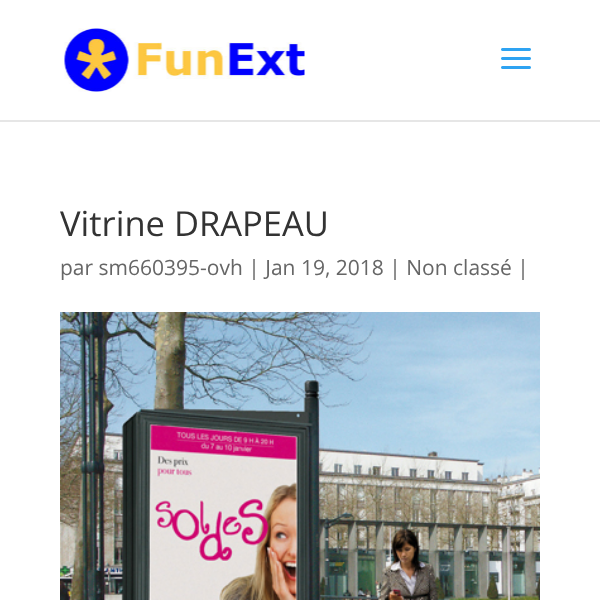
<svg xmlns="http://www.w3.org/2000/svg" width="600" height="600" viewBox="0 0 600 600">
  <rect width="100%" height="100%" fill="#ffffff"/>
  <rect x="0" y="120" width="600" height="2" fill="#e6e6e6"/>
  <image x="64" y="28" width="241" height="64" href="img1.png"/>
  <image x="501" y="48" width="30" height="21" href="img2.png"/>
  <text x="60" y="236" font-family="Open Sans" font-size="34.5" fill="#333333">Vitrine DRAPEAU</text>
  <text x="60" y="275" font-family="Open Sans" font-size="21" fill="#666666">par sm660395-ovh | Jan 19, 2018 | Non classé |</text>
  <image x="60" y="312" width="480" height="288" href="img3.png"/>
</svg>
